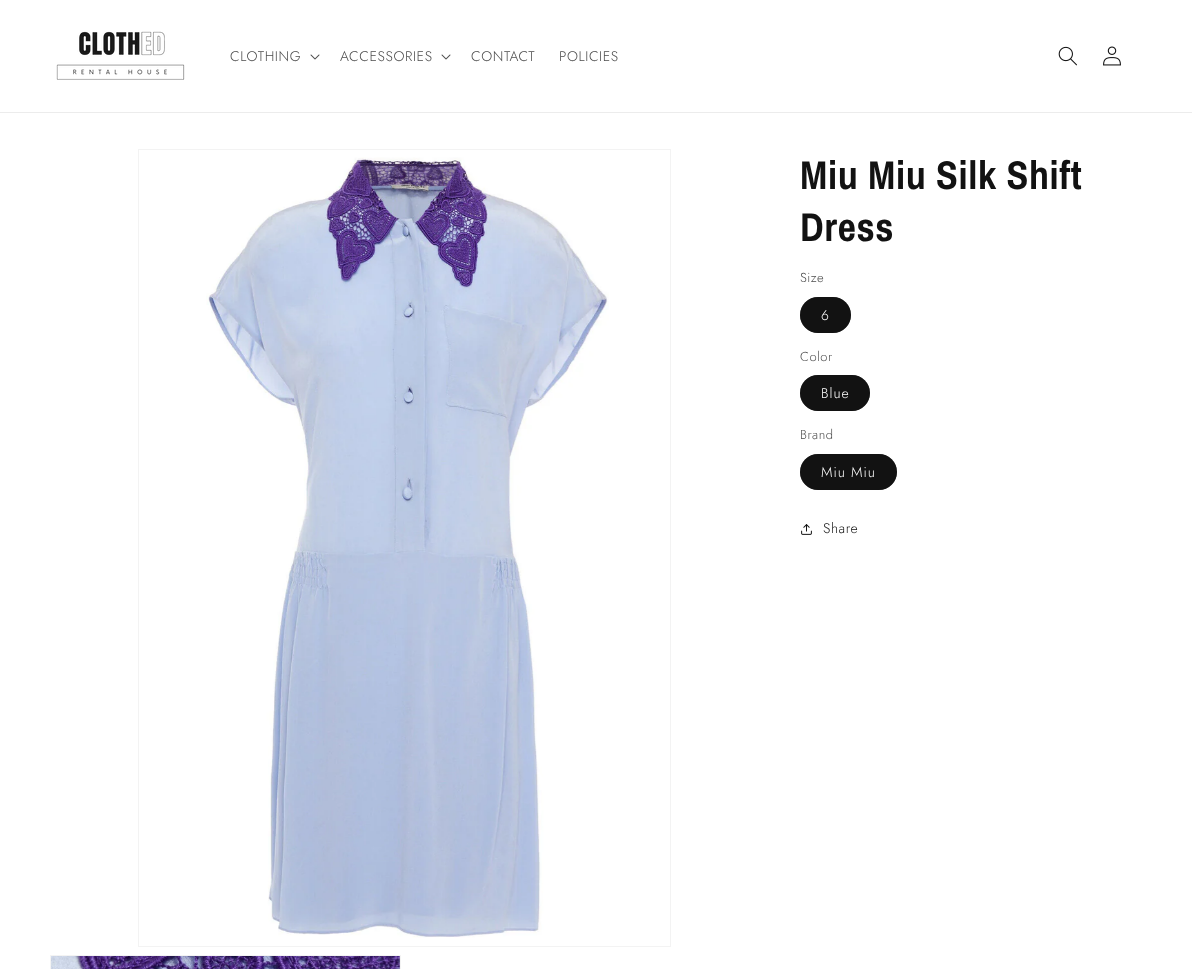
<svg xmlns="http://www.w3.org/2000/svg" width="1192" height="969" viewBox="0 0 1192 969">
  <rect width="100%" height="100%" fill="#ffffff"/>
  <rect x="0" y="112" width="1192" height="1" fill="#ececec"/>
  <image x="56" y="31" width="129" height="49" href="img1.png"/>
  <text x="230" y="61" font-family="Jost" font-size="14" font-weight="300" letter-spacing="0.6" fill="#4d4d4d">CLOTHING</text>
  <image x="310" y="54" width="10" height="6" href="img2.png"/>
  <text x="340" y="61" font-family="Jost" font-size="14" font-weight="300" letter-spacing="0.6" fill="#4d4d4d">ACCESSORIES</text>
  <image x="441" y="54" width="10" height="6" href="img2.png"/>
  <text x="471" y="61" font-family="Jost" font-size="14" font-weight="300" letter-spacing="0.6" fill="#4d4d4d">CONTACT</text>
  <text x="559" y="61" font-family="Jost" font-size="14" font-weight="300" letter-spacing="0.6" fill="#4d4d4d">POLICIES</text>
  <image x="1058" y="46" width="19" height="20" href="img3.png"/>
  <image x="1103" y="46" width="18" height="20" href="img4.png"/>
  <rect x="138.5" y="149.5" width="532" height="797" fill="none" stroke="#f3f3f3"/>
  <image x="206" y="157" width="403" height="781" href="img5.png"/>
  <rect x="50.5" y="955.5" width="350" height="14" fill="none" stroke="#f3f3f3"/>
  <image x="51" y="956" width="349" height="13" href="img6.png"/>
  <text x="800" y="189" font-family="Archivo Narrow" font-size="40" font-weight="bold" letter-spacing="0.6" fill="#121212">Miu Miu Silk Shift</text>
  <text x="800" y="241" font-family="Archivo Narrow" font-size="40" font-weight="bold" letter-spacing="0.6" fill="#121212">Dress</text>
  <text x="800" y="282" font-family="Jost" font-size="13" font-weight="300" letter-spacing="0.5" fill="#4d4d4d">Size</text>
  <rect x="800" y="297" width="51" height="36" rx="18" fill="#121212"/>
  <rect x="800.5" y="297.5" width="50" height="35" rx="17.5" fill="none" stroke="#121212" stroke-opacity="0.55"/>
  <text x="821" y="320" font-family="Jost" font-size="14" font-weight="300" letter-spacing="1" fill="#ffffff">6</text>
  <text x="800" y="361" font-family="Jost" font-size="13" font-weight="300" letter-spacing="0.5" fill="#4d4d4d">Color</text>
  <rect x="800" y="375" width="70" height="36" rx="18" fill="#121212"/>
  <rect x="800.5" y="375.5" width="69" height="35" rx="17.5" fill="none" stroke="#121212" stroke-opacity="0.55"/>
  <text x="821" y="398" font-family="Jost" font-size="14" font-weight="300" letter-spacing="1" fill="#ffffff">Blue</text>
  <text x="800" y="439" font-family="Jost" font-size="13" font-weight="300" letter-spacing="0.5" fill="#4d4d4d">Brand</text>
  <rect x="800" y="454" width="97" height="36" rx="18" fill="#121212"/>
  <rect x="800.5" y="454.5" width="96" height="35" rx="17.5" fill="none" stroke="#121212" stroke-opacity="0.55"/>
  <text x="821" y="477" font-family="Jost" font-size="14" font-weight="300" letter-spacing="1" fill="#ffffff">Miu Miu</text>
  <image x="801" y="524" width="11" height="11" href="img7.png"/>
  <text x="823" y="533" font-family="Jost" font-size="14" font-weight="300" letter-spacing="0.6" fill="#121212">Share</text>
</svg>
